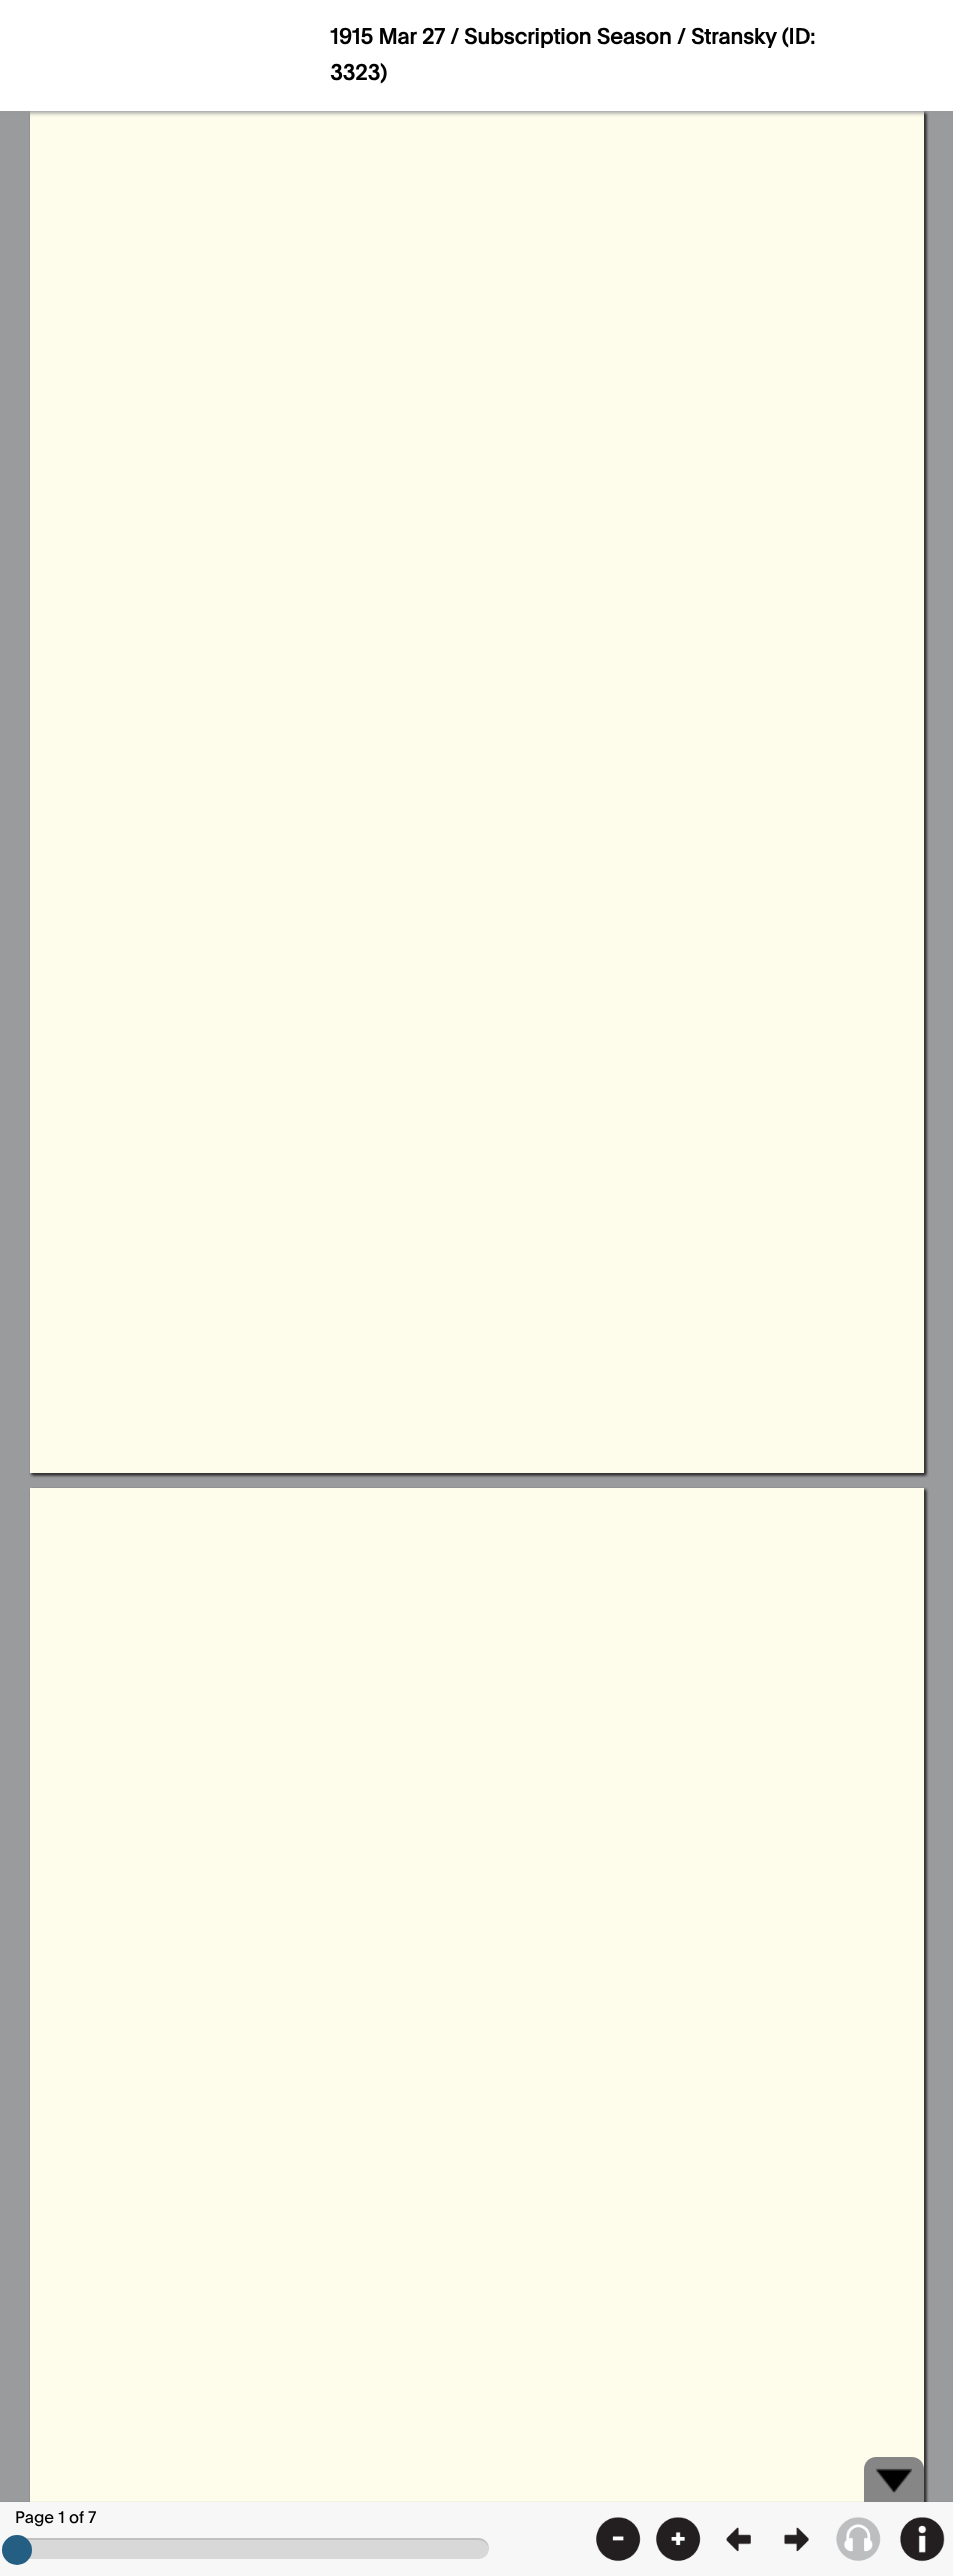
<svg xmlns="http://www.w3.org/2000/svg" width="953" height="2576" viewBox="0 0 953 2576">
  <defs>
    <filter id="blur1" x="-50%" y="-200%" width="200%" height="500%"><feGaussianBlur stdDeviation="1.5"/></filter>
    <filter id="blur2" x="-50%" y="-200%" width="200%" height="500%"><feGaussianBlur stdDeviation="2"/></filter>
    <clipPath id="clip1"><path d="M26 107H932V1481H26ZM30 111H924V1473H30Z" clip-rule="evenodd"/></clipPath>
    <clipPath id="clip2"><path d="M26 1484H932V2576H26ZM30 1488H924V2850H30Z" clip-rule="evenodd"/></clipPath>
  </defs>
  <rect width="100%" height="100%" fill="#9a9b9d"/>
  <rect x="32" y="113" width="894" height="1362" fill="#333333" filter="url(#blur1)"/>
  <rect x="30" y="111" width="894" height="1362" fill="#fefdeb"/>
  <rect x="0" y="2" width="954" height="111" fill="#999999" filter="url(#blur2)"/>
  <g clip-path="url(#clip1)">
    <rect x="32" y="113" width="894" height="1362" fill="#333333" filter="url(#blur1)"/>
  </g>
  <rect x="0" y="0" width="953" height="111" fill="#ffffff"/>
  <text x="330" y="44" font-family="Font" font-size="21.6" font-weight="bold" fill="#000000">1915 Mar 27 / Subscription Season / Stransky (ID:</text>
  <text x="330" y="80" font-family="Font" font-size="21.6" font-weight="bold" fill="#000000">3323)</text>
  <rect x="32" y="1490" width="894" height="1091" fill="#333333" filter="url(#blur1)"/>
  <rect x="30" y="1488" width="894" height="1014" fill="#fefdeb"/>
  <g clip-path="url(#clip2)">
    <rect x="32" y="1490" width="894" height="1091" fill="#333333" filter="url(#blur1)"/>
  </g>
  <rect x="2" y="2504" width="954" height="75" fill="#333333" filter="url(#blur1)"/>
  <rect x="0" y="2502" width="953" height="74" fill="#f7f7f7"/>
  <path d="M876 2457H912C918.5 2457 924 2462.5 924 2469V2502H864V2469C864 2462.5 869.5 2457 876 2457Z" fill="#868686"/>
  <image x="876" y="2468" width="36" height="26" href="img1.png"/>
  <text x="15" y="2523" font-family="Font" font-size="16.5" fill="#000000">Page 1 of 7</text>
  <image x="596" y="2517" width="45" height="45" href="img2.png"/>
  <image x="656" y="2517" width="45" height="45" href="img3.png"/>
  <image x="726" y="2527" width="25" height="25" href="img4.png"/>
  <image x="784" y="2527" width="25" height="25" href="img5.png"/>
  <image x="836" y="2517" width="45" height="44" href="img6.png"/>
  <image x="900" y="2517" width="45" height="45" href="img7.png"/>
  <rect x="15" y="2538" width="474" height="21" rx="10.5" fill="#d8d8d8"/>
  <path d="M26 2540H478C485 2540 489 2545 489 2550C490 2544 485 2538 478 2538H26L21 2539C16 2541 14 2547 16 2553C14 2547 18 2540 26 2540Z" fill="#9b9a9b" fill-opacity="0.39"/>
  <circle cx="17" cy="2550" r="15" fill="#245e83"/>
</svg>
